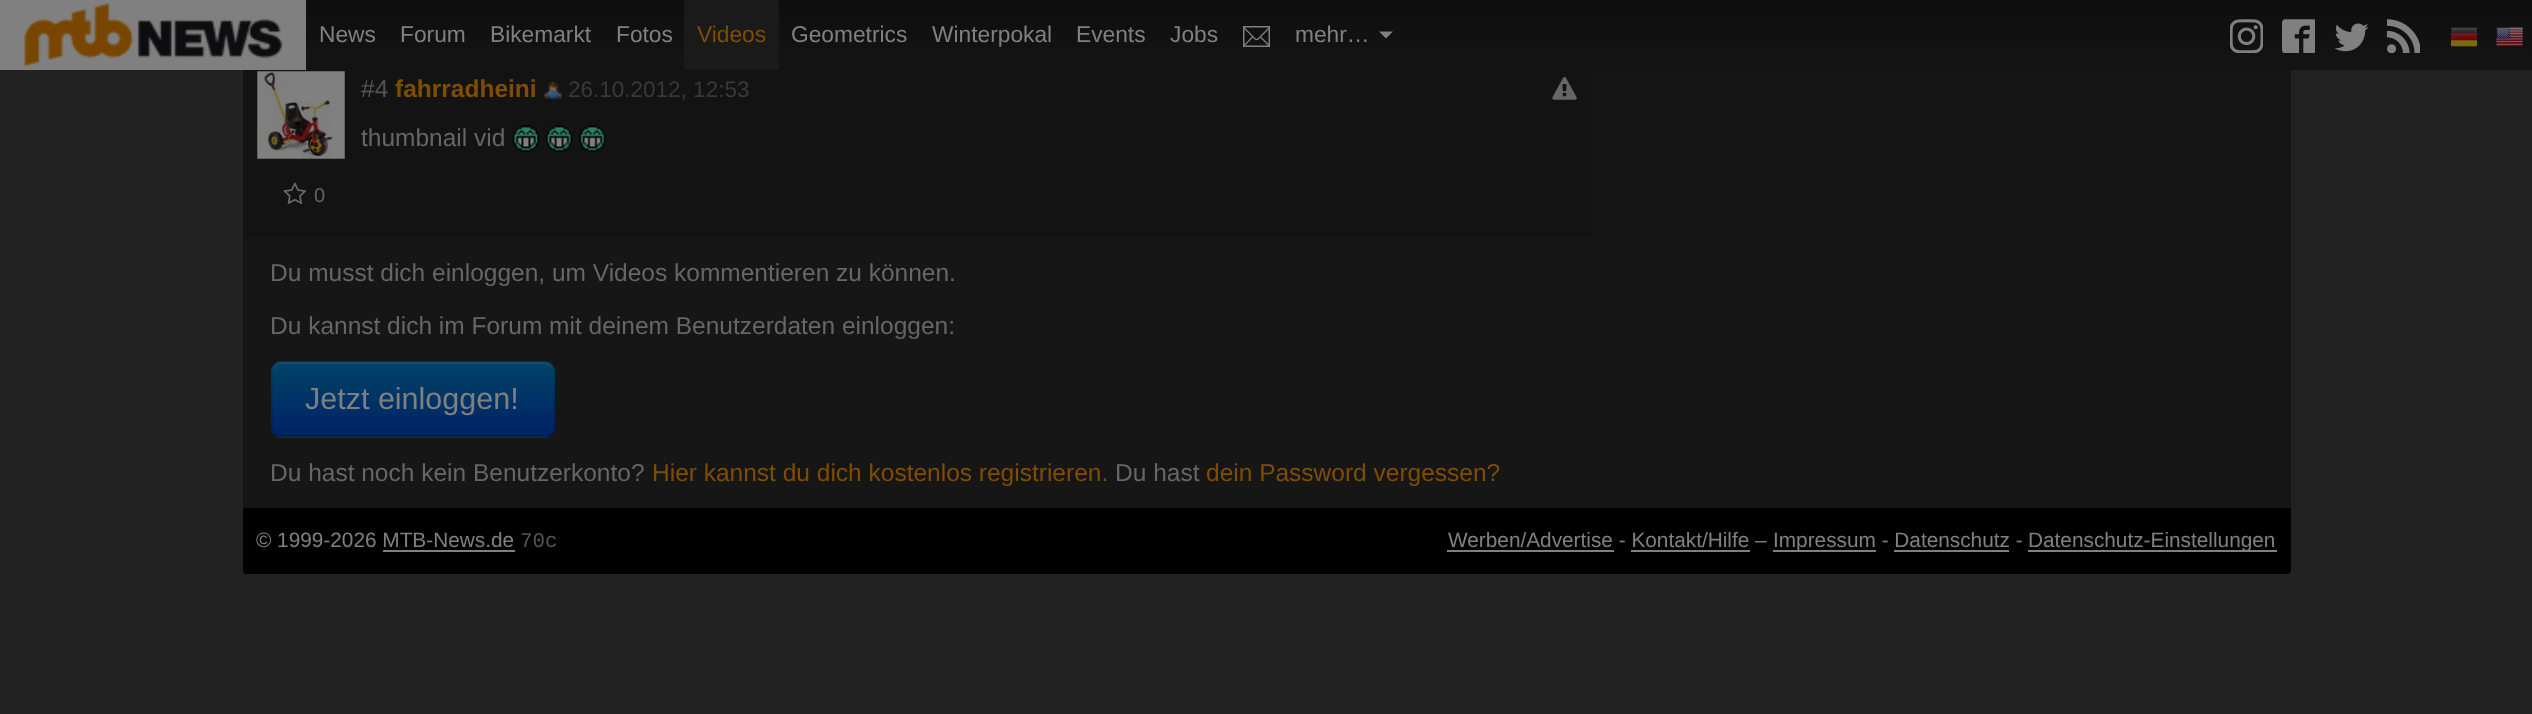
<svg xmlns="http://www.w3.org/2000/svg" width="2532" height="714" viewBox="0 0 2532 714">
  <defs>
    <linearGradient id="g1" gradientUnits="userSpaceOnUse" x1="1266" y1="0" x2="1266" y2="70"><stop offset="0" stop-color="#0e0e0e"/><stop offset="1" stop-color="#141414"/></linearGradient>
    <clipPath id="clip1"><rect x="271" y="361" width="284" height="77" rx="11"/></clipPath>
    <linearGradient id="g2" gradientUnits="userSpaceOnUse" x1="413" y1="362" x2="413" y2="436"><stop offset="0" stop-color="#004466"/><stop offset="1" stop-color="#002266"/></linearGradient>
  </defs>
  <rect width="100%" height="100%" fill="#222222"/>
  <rect x="306" y="0" width="2226" height="68" fill="url(#g1)"/>
  <rect x="306" y="68" width="2226" height="2" fill="#121212"/>
  <rect x="0" y="0" width="306" height="70" fill="#808080"/>
  <image x="24" y="3" width="259" height="64" href="img1.png"/>
  <text x="319" y="42" font-family="Liberation Sans" font-size="22.75" fill="#808080">News</text>
  <text x="400" y="42" font-family="Liberation Sans" font-size="22.75" fill="#808080">Forum</text>
  <text x="490" y="42" font-family="Liberation Sans" font-size="22.75" fill="#808080">Bikemarkt</text>
  <text x="616" y="42" font-family="Liberation Sans" font-size="22.75" fill="#808080">Fotos</text>
  <rect x="684" y="0" width="95" height="70" fill="#1a1a1a"/>
  <text x="697" y="42" font-family="Liberation Sans" font-size="22.75" fill="#804d00">Videos</text>
  <text x="791" y="42" font-family="Liberation Sans" font-size="22.75" fill="#808080">Geometrics</text>
  <text x="932" y="42" font-family="Liberation Sans" font-size="22.75" fill="#808080">Winterpokal</text>
  <text x="1076" y="42" font-family="Liberation Sans" font-size="22.75" fill="#808080">Events</text>
  <text x="1170" y="42" font-family="Liberation Sans" font-size="22.75" fill="#808080">Jobs</text>
  <image x="1243" y="26" width="28" height="21" href="img2.png"/>
  <text x="1295" y="42" font-family="Liberation Sans" font-size="22.75" fill="#808080">mehr…</text>
  <path d="M1379 31.5H1393L1386 38.5Z" fill="#808080"/>
  <image x="2230" y="19" width="33" height="34" href="img3.png"/>
  <image x="2282" y="19" width="33" height="34" href="img4.png"/>
  <image x="2335" y="23" width="33" height="29" href="img5.png"/>
  <image x="2387" y="19" width="33" height="34" href="img6.png"/>
  <image x="2450" y="27" width="28" height="21" href="img7.png"/>
  <image x="2495" y="27" width="29" height="21" href="img8.png"/>
  <rect x="243" y="70" width="2048" height="504" fill="#161616"/>
  <rect x="243" y="70" width="1348" height="168" fill="#131313"/>
  <text x="361" y="97" font-family="Liberation Sans" font-size="24.5" fill="#555555">#4</text>
  <text x="395" y="97" font-family="Liberation Sans" font-size="24.5" font-weight="bold" fill="#804d00">fahrradheini</text>
  <image x="544" y="81" width="18" height="19" href="img9.png"/>
  <text x="568" y="97" font-family="Liberation Sans" font-size="22.5" fill="#393939">26.10.2012, 12:53</text>
  <image x="1552" y="77" width="25" height="23" href="img10.png"/>
  <text x="361" y="146" font-family="Liberation Sans" font-size="24.5" fill="#666666">thumbnail vid</text>
  <image x="512" y="125" width="27" height="27" href="img11.png"/>
  <image x="546" y="125" width="27" height="27" href="img12.png"/>
  <image x="579" y="125" width="27" height="27" href="img13.png"/>
  <image x="257" y="71" width="88" height="88" href="img14.png"/>
  <image x="283" y="182" width="24" height="23" href="img15.png"/>
  <text x="314" y="202" font-family="Liberation Sans" font-size="20" fill="#666666">0</text>
  <text x="270" y="281" font-family="Liberation Sans" font-size="24.5" fill="#666666">Du musst dich einloggen, um Videos kommentieren zu können.</text>
  <text x="270" y="334" font-family="Liberation Sans" font-size="24.5" fill="#666666">Du kannst dich im Forum mit deinem Benutzerdaten einloggen:</text>
  <rect x="271" y="361" width="284" height="77" rx="11" fill="#003766"/>
  <g clip-path="url(#clip1)">
    <rect x="271" y="362" width="284" height="74" fill="url(#g2)"/>
  </g>
  <path d="M282 364H544C549 364 553 368 553 373V371C553 366 549 362 544 362H282C277 362 273 366 273 371V373C273 368 277 364 282 364Z" fill="#808080" fill-opacity="0.2"/>
  <path d="M551 434C549.5 435.5 547 436.5 544 436.5H282C279 436.5 276.5 435.5 275 434" fill="none" stroke="#000000" stroke-opacity="0.25" stroke-width="1.8"/>
  <path d="M275 434C273 432 272 429.5 272 427V371C272 368.5 273 366 275 364C276.5 362.5 279 361.5 282 361.5H544C547 361.5 549.5 362.5 551 364C553 366 554 368.5 554 371V427C554 429.5 553 432 551 434" fill="none" stroke="#000000" stroke-opacity="0.1" stroke-width="1.8"/>
  <text x="305" y="409" font-family="Liberation Sans" font-size="30.5" fill="#808080">Jetzt einloggen!</text>
  <text x="270" y="481" font-family="Liberation Sans" font-size="24.5" fill="#666666">Du hast noch kein Benutzerkonto?</text>
  <text x="652" y="481" font-family="Liberation Sans" font-size="24.5" fill="#804d00">Hier kannst du dich kostenlos registrieren.</text>
  <text x="1115" y="481" font-family="Liberation Sans" font-size="24.5" fill="#666666">Du hast</text>
  <text x="1206" y="481" font-family="Liberation Sans" font-size="24.5" fill="#804d00">dein Password vergessen?</text>
  <path d="M243 508H2291V569C2291 572 2289 574 2286 574H248C245 574 243 572 243 569Z" fill="#000000"/>
  <text x="256" y="547" font-family="Liberation Sans" font-size="20.8" fill="#808080">© 1999-2026 MTB-News.de</text>
  <text x="520" y="547" font-family="Liberation Mono" font-size="20.8" fill="#555555">70c</text>
  <rect x="383" y="550" width="132" height="2" fill="#808080"/>
  <text x="1448" y="547" font-family="Liberation Sans" font-size="20.8" fill="#808080">Werben/Advertise - Kontakt/Hilfe –</text>
  <rect x="1447" y="550" width="167" height="2" fill="#808080"/>
  <rect x="1773" y="550" width="103" height="2" fill="#808080"/>
  <text x="1773" y="547" font-family="Liberation Sans" font-size="20.8" fill="#808080">Impressum - Datenschutz -</text>
  <rect x="2028" y="550" width="249" height="2" fill="#808080"/>
  <text x="2028" y="547" font-family="Liberation Sans" font-size="20.8" fill="#808080">Datenschutz-Einstellungen</text>
  <rect x="1631" y="550" width="119" height="2" fill="#808080"/>
  <rect x="1894" y="550" width="115" height="2" fill="#808080"/>
</svg>
